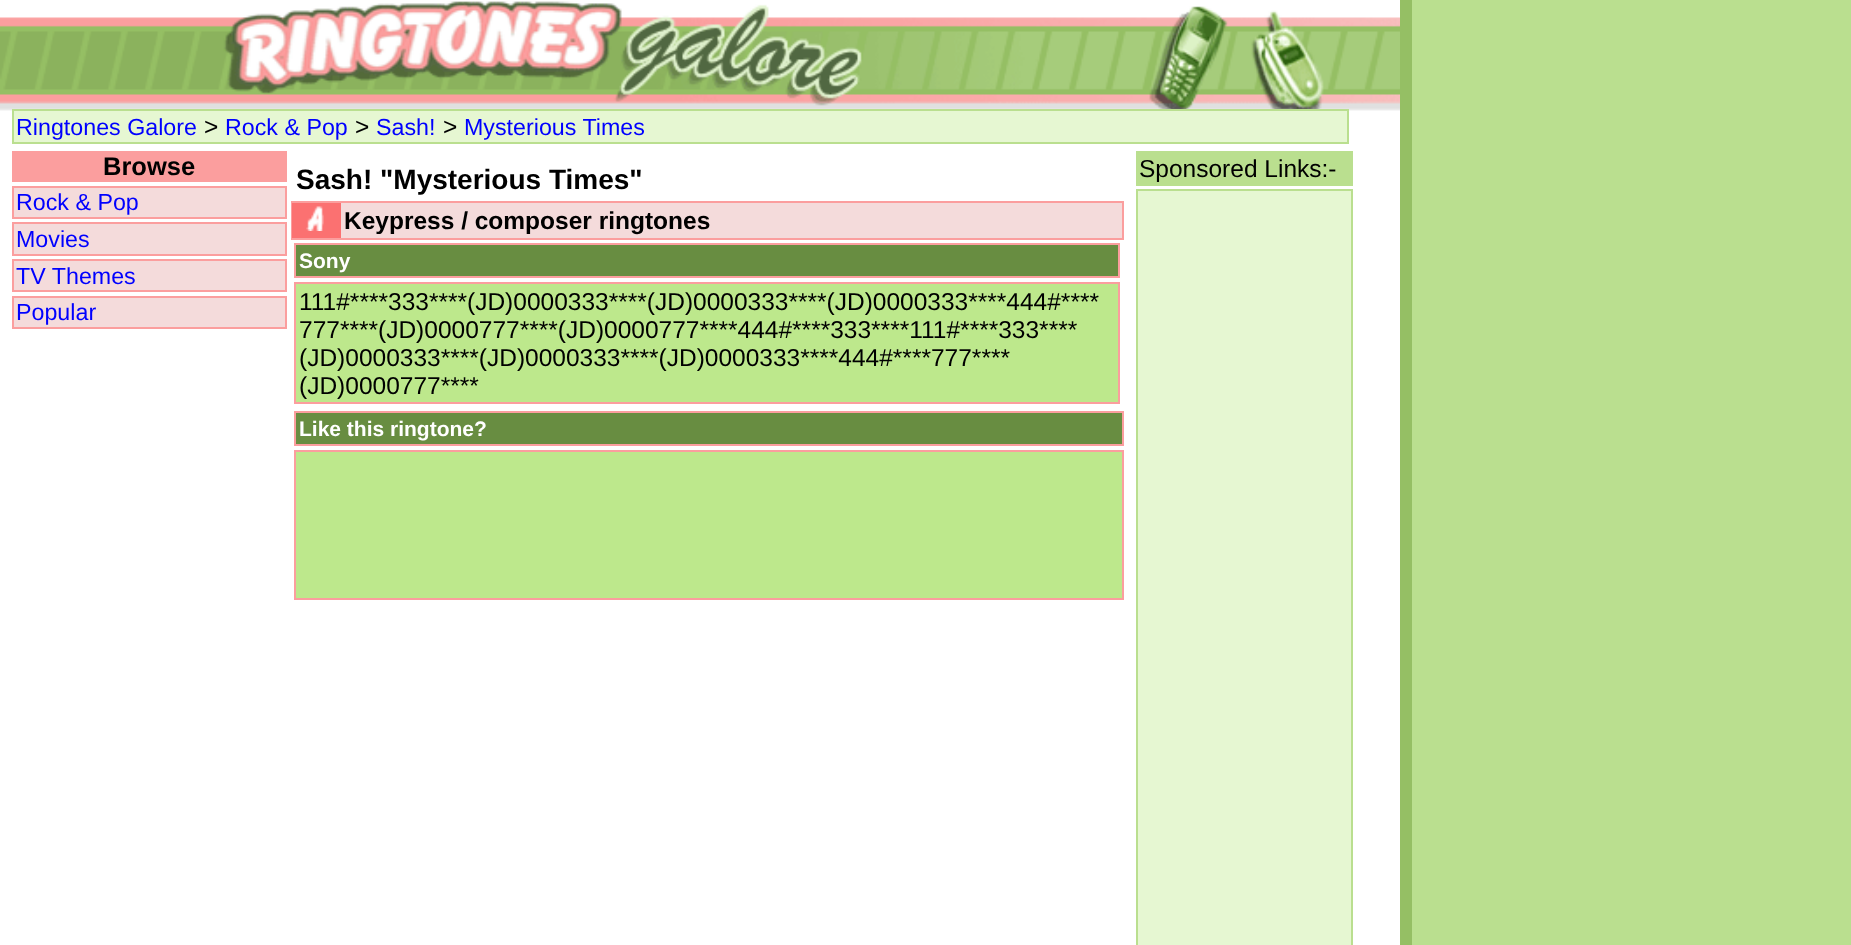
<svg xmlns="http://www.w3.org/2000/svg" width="1851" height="945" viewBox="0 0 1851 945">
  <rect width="100%" height="100%" fill="#badf8f"/>
  <rect x="0" y="0" width="1400" height="945" fill="#ffffff"/>
  <rect x="1400" y="0" width="12" height="945" fill="#95bf64"/>
  <image x="0" y="1" width="1400" height="115" href="img1.png"/>
  <rect x="13" y="110" width="1335" height="33" fill="#e6f7d2" stroke="#badf8f" stroke-width="2"/>
  <text x="16" y="135" font-family="Liberation Sans" font-size="23.25" fill="#0000ff">Ringtones Galore</text>
  <text x="204" y="135" font-family="Liberation Sans" font-size="24.5" fill="#000000">&gt;</text>
  <text x="225" y="135" font-family="Liberation Sans" font-size="23.25" fill="#0000ff">Rock &amp; Pop</text>
  <text x="355" y="135" font-family="Liberation Sans" font-size="24.5" fill="#000000">&gt;</text>
  <text x="376" y="135" font-family="Liberation Sans" font-size="23.25" fill="#0000ff">Sash!</text>
  <text x="443" y="135" font-family="Liberation Sans" font-size="24.5" fill="#000000">&gt;</text>
  <text x="464" y="135" font-family="Liberation Sans" font-size="23.25" fill="#0000ff">Mysterious Times</text>
  <rect x="12" y="151" width="275" height="31" fill="#fb9e9e"/>
  <text x="103" y="175" font-family="Liberation Sans" font-size="25.5" font-weight="bold" fill="#000000">Browse</text>
  <rect x="13" y="187" width="273" height="31" fill="#f4dbdb" stroke="#fb9e9e" stroke-width="2"/>
  <text x="16" y="210" font-family="Liberation Sans" font-size="23.25" fill="#0000ff">Rock &amp; Pop</text>
  <rect x="13" y="223" width="273" height="32" fill="#f4dbdb" stroke="#fb9e9e" stroke-width="2"/>
  <text x="16" y="247" font-family="Liberation Sans" font-size="23.25" fill="#0000ff">Movies</text>
  <rect x="13" y="260" width="273" height="31" fill="#f4dbdb" stroke="#fb9e9e" stroke-width="2"/>
  <text x="16" y="284" font-family="Liberation Sans" font-size="23.25" fill="#0000ff">TV Themes</text>
  <rect x="13" y="297" width="273" height="31" fill="#f4dbdb" stroke="#fb9e9e" stroke-width="2"/>
  <text x="16" y="320" font-family="Liberation Sans" font-size="23.25" fill="#0000ff">Popular</text>
  <text x="296" y="189" font-family="Liberation Sans" font-size="28" font-weight="bold" fill="#000000">Sash! "Mysterious Times"</text>
  <rect x="292" y="202" width="831" height="37" fill="none" stroke="#fb9e9e" stroke-width="2"/>
  <rect x="292" y="203" width="49" height="35" fill="#fb7171"/>
  <image x="306" y="206" width="18" height="25" href="img2.png"/>
  <rect x="341" y="203" width="781" height="35" fill="#f4dbdb"/>
  <text x="344" y="229" font-family="Liberation Sans" font-size="24.5" font-weight="bold" fill="#000000">Keypress / composer ringtones</text>
  <rect x="295" y="244" width="824" height="33" fill="#688d41" stroke="#fb9e9e" stroke-width="2"/>
  <text x="299" y="268" font-family="Liberation Sans" font-size="21" font-weight="bold" fill="#ffffff">Sony</text>
  <rect x="295" y="283" width="824" height="120" fill="#bde88c" stroke="#fb9e9e" stroke-width="2"/>
  <text x="299" y="310" font-family="Liberation Sans" font-size="24.5" fill="#000000">111#****333****(JD)0000333****(JD)0000333****(JD)0000333****444#****</text>
  <text x="299" y="338" font-family="Liberation Sans" font-size="24.5" fill="#000000">777****(JD)0000777****(JD)0000777****444#****333****111#****333****</text>
  <text x="299" y="366" font-family="Liberation Sans" font-size="24.5" fill="#000000">(JD)0000333****(JD)0000333****(JD)0000333****444#****777****</text>
  <text x="299" y="394" font-family="Liberation Sans" font-size="24.5" fill="#000000">(JD)0000777****</text>
  <rect x="295" y="412" width="828" height="33" fill="#688d41" stroke="#fb9e9e" stroke-width="2"/>
  <text x="299" y="436" font-family="Liberation Sans" font-size="21" font-weight="bold" fill="#ffffff">Like this ringtone?</text>
  <rect x="295" y="451" width="828" height="148" fill="#bde88c" stroke="#fb9e9e" stroke-width="2"/>
  <rect x="1136" y="151" width="217" height="35" fill="#badf8f"/>
  <text x="1139" y="177" font-family="Liberation Sans" font-size="24.5" fill="#000000">Sponsored Links:-</text>
  <rect x="1137" y="190" width="215" height="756" fill="#e6f7d2" stroke="#badf8f" stroke-width="2"/>
</svg>
